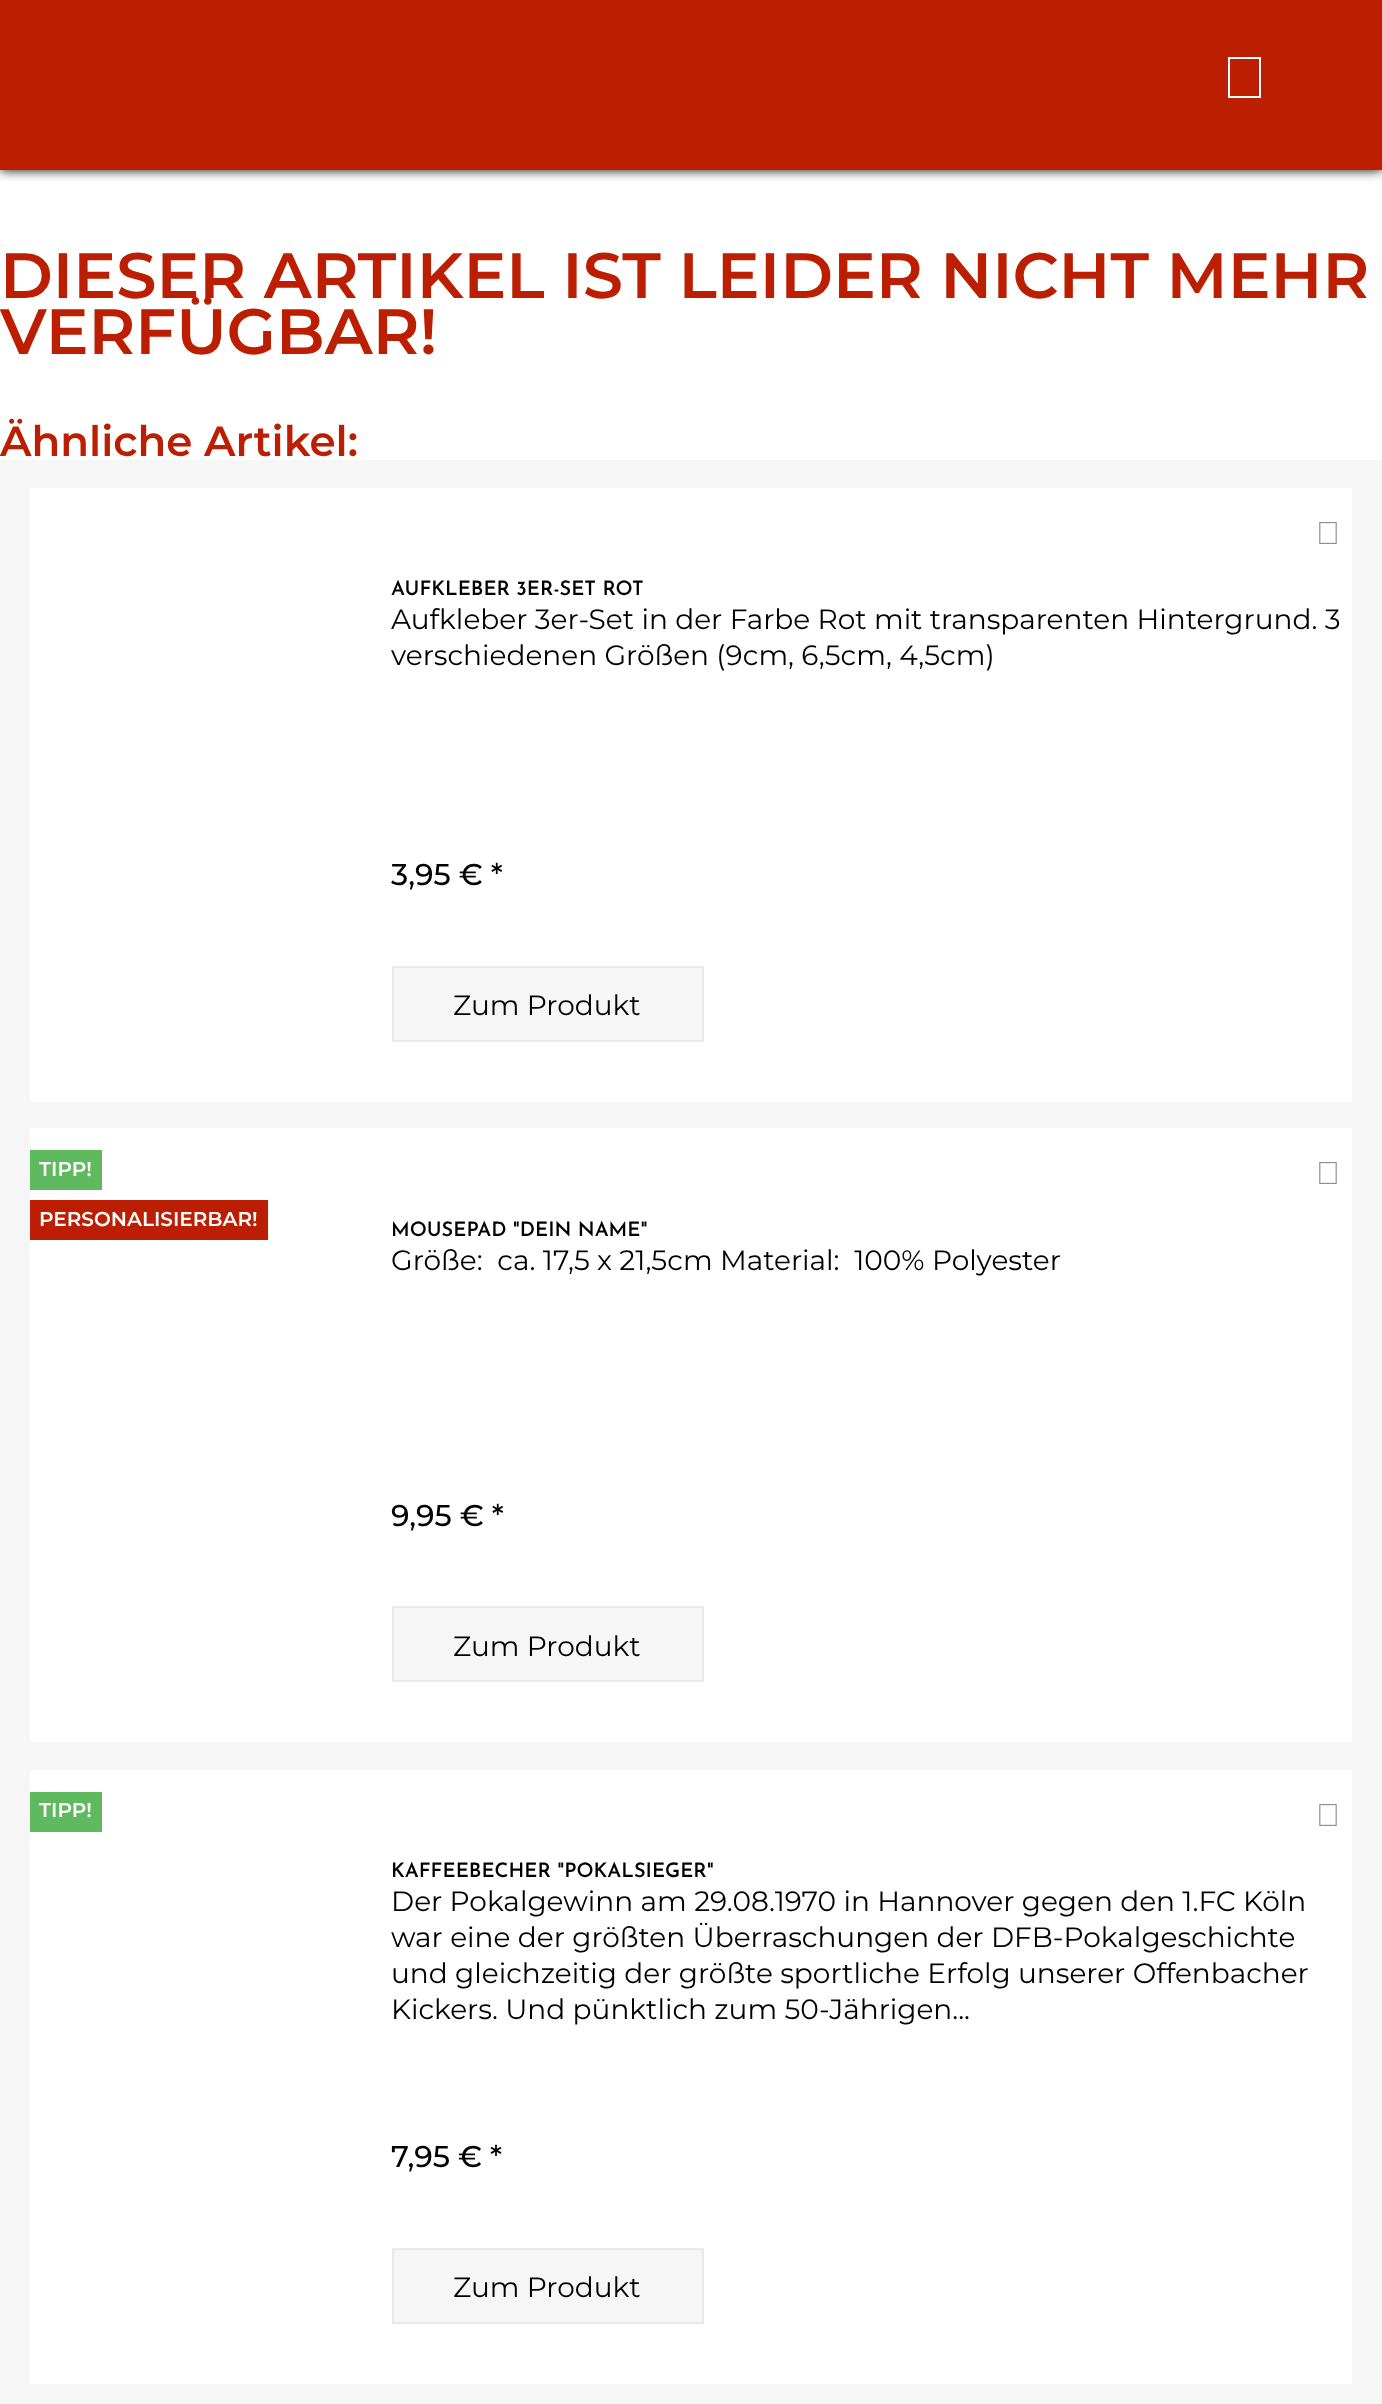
<svg xmlns="http://www.w3.org/2000/svg" width="1382" height="2404" viewBox="0 0 1382 2404">
  <defs>
    <filter id="blur1" x="-50%" y="-200%" width="200%" height="500%"><feGaussianBlur stdDeviation="6"/></filter>
  </defs>
  <rect width="100%" height="100%" fill="#ffffff"/>
  <rect x="0" y="0" width="1382" height="170" fill="#000000" filter="url(#blur1)"/>
  <rect x="0" y="0" width="1382" height="170" fill="#bb1e00"/>
  <path d="M1228 57H1261V98H1228ZM1230 59V96H1259V59Z" fill="#ffffff"/>
  <text x="0" y="298" font-family="Montserrat" font-size="64" font-weight="600" fill="#bb1e00">DIESER ARTIKEL IST LEIDER NICHT MEHR</text>
  <text x="0" y="354" font-family="Montserrat" font-size="64" font-weight="600" fill="#bb1e00">VERFÜGBAR!</text>
  <text x="0" y="456" font-family="Montserrat" font-size="42" font-weight="600" fill="#bb1e00">Ähnliche Artikel:</text>
  <rect x="0" y="460" width="1382" height="1944" fill="#f6f6f6"/>
  <rect x="32" y="490" width="1318" height="612" fill="#ffffff"/>
  <rect x="30" y="488" width="1322" height="2" fill="#ffffff"/>
  <rect x="1350" y="488" width="2" height="614" fill="#ffffff"/>
  <rect x="30" y="488" width="2" height="614" fill="#ffffff"/>
  <image x="1319" y="522" width="18" height="22" href="img1.png"/>
  <text x="391" y="595" font-family="Josefin Sans" font-size="20" font-weight="600" fill="#000000">AUFKLEBER 3ER-SET ROT</text>
  <text x="391" y="629" font-family="Montserrat" font-size="28" fill="#000000">Aufkleber 3er-Set in der Farbe Rot mit transparenten Hintergrund. 3</text>
  <text x="391" y="665" font-family="Montserrat" font-size="28" fill="#000000">verschiedenen Größen (9cm, 6,5cm, 4,5cm)</text>
  <text x="391" y="885" font-family="Montserrat" font-size="30" font-weight="500" fill="#000000">3,95 € *</text>
  <rect x="393" y="967" width="310" height="74" fill="#f6f6f6" stroke="#e9e9e9" stroke-width="2"/>
  <text x="453" y="1015" font-family="Montserrat" font-size="28" fill="#000000">Zum Produkt</text>
  <rect x="32" y="1130" width="1318" height="612" fill="#ffffff"/>
  <rect x="30" y="1128" width="1322" height="2" fill="#ffffff"/>
  <rect x="1350" y="1128" width="2" height="614" fill="#ffffff"/>
  <rect x="30" y="1128" width="2" height="614" fill="#ffffff"/>
  <rect x="30" y="1150" width="72" height="40" fill="#5fb95f"/>
  <text x="39" y="1176" font-family="Montserrat" font-size="20" font-weight="600" fill="#ffffff">TIPP!</text>
  <rect x="30" y="1200" width="238" height="40" fill="#bb1e02"/>
  <text x="39" y="1226" font-family="Montserrat" font-size="20" font-weight="600" fill="#ffffff">PERSONALISIERBAR!</text>
  <image x="1319" y="1162" width="18" height="22" href="img1.png"/>
  <text x="391" y="1236" font-family="Josefin Sans" font-size="20" font-weight="600" fill="#000000">MOUSEPAD "DEIN NAME"</text>
  <text x="391" y="1270" font-family="Montserrat" font-size="28" fill="#000000" xml:space="preserve">Größe:  ca. 17,5 x 21,5cm Material:  100% Polyester</text>
  <text x="391" y="1526" font-family="Montserrat" font-size="30" font-weight="500" fill="#000000">9,95 € *</text>
  <rect x="393" y="1607" width="310" height="74" fill="#f6f6f6" stroke="#e9e9e9" stroke-width="2"/>
  <text x="453" y="1656" font-family="Montserrat" font-size="28" fill="#000000">Zum Produkt</text>
  <rect x="32" y="1772" width="1318" height="612" fill="#ffffff"/>
  <rect x="30" y="1770" width="1322" height="2" fill="#ffffff"/>
  <rect x="1350" y="1770" width="2" height="614" fill="#ffffff"/>
  <rect x="30" y="1770" width="2" height="614" fill="#ffffff"/>
  <rect x="30" y="1792" width="72" height="40" fill="#5fb95f"/>
  <text x="39" y="1817" font-family="Montserrat" font-size="20" font-weight="600" fill="#ffffff">TIPP!</text>
  <image x="1319" y="1804" width="18" height="22" href="img1.png"/>
  <text x="391" y="1877" font-family="Josefin Sans" font-size="20" font-weight="600" fill="#000000">KAFFEEBECHER "POKALSIEGER"</text>
  <text x="391" y="1911" font-family="Montserrat" font-size="28" fill="#000000">Der Pokalgewinn am 29.08.1970 in Hannover gegen den 1.FC Köln</text>
  <text x="391" y="1947" font-family="Montserrat" font-size="28" fill="#000000">war eine der größten Überraschungen der DFB-Pokalgeschichte</text>
  <text x="391" y="1983" font-family="Montserrat" font-size="28" fill="#000000">und gleichzeitig der größte sportliche Erfolg unserer Offenbacher</text>
  <text x="391" y="2019" font-family="Montserrat" font-size="28" fill="#000000">Kickers. Und pünktlich zum 50-Jährigen...</text>
  <text x="391" y="2167" font-family="Montserrat" font-size="30" font-weight="500" fill="#000000">7,95 € *</text>
  <rect x="393" y="2249" width="310" height="74" fill="#f6f6f6" stroke="#e9e9e9" stroke-width="2"/>
  <text x="453" y="2297" font-family="Montserrat" font-size="28" fill="#000000">Zum Produkt</text>
</svg>
